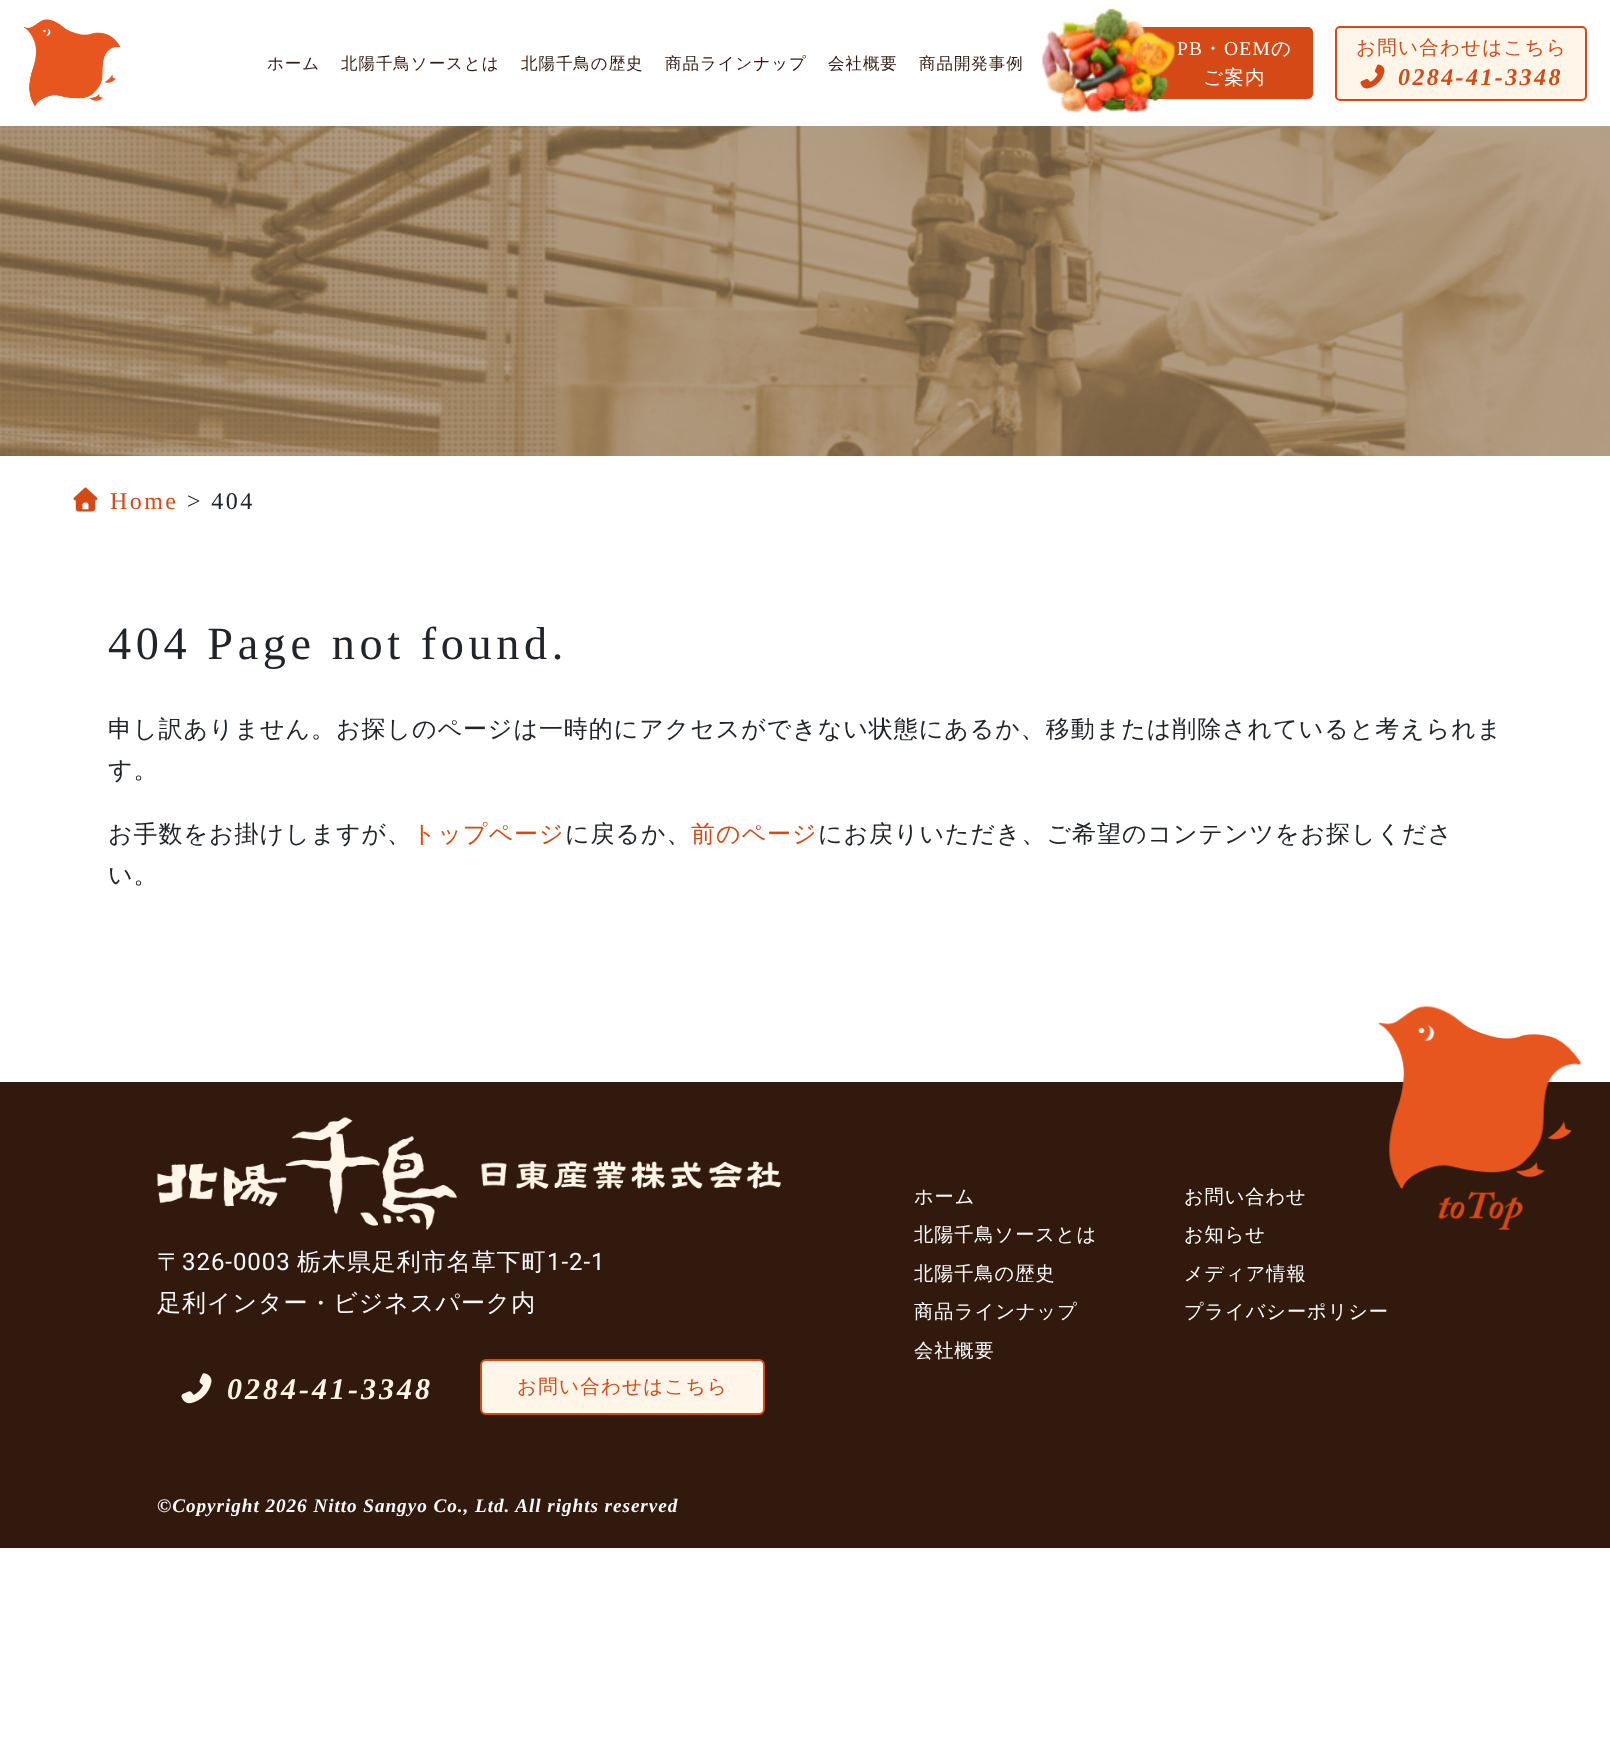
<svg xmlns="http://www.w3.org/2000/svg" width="1610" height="1737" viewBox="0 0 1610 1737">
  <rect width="100%" height="100%" fill="#ffffff"/>
  <image x="24" y="19" width="96" height="88" href="img1.png"/>
  <text x="267" y="69" font-family="WenQuanYi Zen Hei" font-size="16.5" font-weight="500" letter-spacing="0.95" fill="#32190e">ホーム</text>
  <text x="341" y="69" font-family="WenQuanYi Zen Hei" font-size="16.5" font-weight="500" letter-spacing="0.95" fill="#32190e">北陽千鳥ソースとは</text>
  <text x="521" y="69" font-family="WenQuanYi Zen Hei" font-size="16.5" font-weight="500" letter-spacing="0.95" fill="#32190e">北陽千鳥の歴史</text>
  <text x="665" y="69" font-family="WenQuanYi Zen Hei" font-size="16.5" font-weight="500" letter-spacing="0.95" fill="#32190e">商品ラインナップ</text>
  <text x="828" y="69" font-family="WenQuanYi Zen Hei" font-size="16.5" font-weight="500" letter-spacing="0.95" fill="#32190e">会社概要</text>
  <text x="919" y="69" font-family="WenQuanYi Zen Hei" font-size="16.5" font-weight="500" letter-spacing="0.95" fill="#32190e">商品開発事例</text>
  <rect x="1105" y="28" width="207" height="70" rx="4" fill="#d54916" stroke="#d54916" stroke-width="2"/>
  <image x="1042" y="8" width="133" height="105" href="img2.png"/>
  <text x="1177" y="55" font-family="Liberation Serif" font-size="19.5" letter-spacing="1.25" fill="#ffffff">PB</text>
  <text x="1203" y="55" font-family="WenQuanYi Zen Hei" font-size="19.5" font-weight="500" letter-spacing="1.25" fill="#ffffff">・</text>
  <text x="1224" y="55" font-family="Liberation Serif" font-size="19.5" letter-spacing="1.25" fill="#ffffff">OEM</text>
  <text x="1271" y="55" font-family="WenQuanYi Zen Hei" font-size="19.5" font-weight="500" letter-spacing="1.25" fill="#ffffff">の</text>
  <text x="1203" y="84" font-family="WenQuanYi Zen Hei" font-size="19.5" font-weight="500" letter-spacing="1.25" fill="#ffffff">ご案内</text>
  <rect x="1336" y="27" width="250" height="73" rx="4" fill="#fff6e9" stroke="#d54916" stroke-width="2"/>
  <text x="1356" y="54" font-family="WenQuanYi Zen Hei" font-size="19.5" font-weight="500" letter-spacing="1.25" fill="#d54916">お問い合わせはこちら</text>
  <image x="1360" y="64" width="25" height="25" href="img3.png"/>
  <text x="1398" y="85" font-family="Liberation Serif" font-size="24" font-weight="bold" font-style="italic" letter-spacing="2.4" fill="#d54916">0284-41-3348</text>
  <image x="0" y="126" width="1610" height="330" href="img4.png"/>
  <image x="73" y="487" width="25" height="25" href="img5.png"/>
  <text x="110" y="509" font-family="Liberation Serif" font-size="24" letter-spacing="2.4" fill="#d54916">Home</text>
  <text x="187" y="509" font-family="Liberation Serif" font-size="24" letter-spacing="2.4" fill="#212529">&gt; 404</text>
  <text x="108" y="659" font-family="Liberation Serif" font-size="46.25" letter-spacing="4.6" fill="#212529">404 Page not found.</text>
  <text x="108" y="737" font-family="WenQuanYi Zen Hei" font-size="24" font-weight="500" letter-spacing="0.95" fill="#212529">申し訳ありません。お探しのページは一時的にアクセスができない状態にあるか、移動または削除されていると考えられま</text>
  <text x="108" y="778" font-family="WenQuanYi Zen Hei" font-size="24" font-weight="500" letter-spacing="0.95" fill="#212529">す。</text>
  <text x="108" y="842" font-family="WenQuanYi Zen Hei" font-size="24" font-weight="500" letter-spacing="0.95" fill="#212529">お手数をお掛けしますが、</text>
  <text x="412" y="842" font-family="WenQuanYi Zen Hei" font-size="24" font-weight="500" letter-spacing="0.95" fill="#d54916">トップページ</text>
  <text x="565" y="842" font-family="WenQuanYi Zen Hei" font-size="24" font-weight="500" letter-spacing="0.95" fill="#212529">に戻るか、</text>
  <text x="691" y="842" font-family="WenQuanYi Zen Hei" font-size="24" font-weight="500" letter-spacing="0.95" fill="#d54916">前のページ</text>
  <text x="818" y="842" font-family="WenQuanYi Zen Hei" font-size="24" font-weight="500" letter-spacing="0.95" fill="#212529">にお戻りいただき、ご希望のコンテンツをお探しくださ</text>
  <text x="108" y="883" font-family="WenQuanYi Zen Hei" font-size="24" font-weight="500" letter-spacing="0.95" fill="#212529">い。</text>
  <rect x="0" y="1082" width="1610" height="466" fill="#32190e"/>
  <image x="1378" y="1006" width="203" height="224" href="img6.png"/>
  <image x="157" y="1117" width="300" height="113" href="img7.png"/>
  <image x="481" y="1161" width="300" height="29" href="img8.png"/>
  <text x="157" y="1270" font-family="WenQuanYi Zen Hei" font-size="24" font-weight="500" letter-spacing="0.95" fill="#f8f9fa">〒</text>
  <text x="182" y="1270" font-family="Roboto" font-size="24" letter-spacing="0.95" fill="#f8f9fa">326-0003</text>
  <text x="297" y="1270" font-family="WenQuanYi Zen Hei" font-size="24" font-weight="500" letter-spacing="0.95" fill="#f8f9fa">栃木県足利市名草下町</text>
  <text x="547" y="1270" font-family="Roboto" font-size="24" letter-spacing="0.95" fill="#f8f9fa">1-2-1</text>
  <text x="157" y="1311" font-family="WenQuanYi Zen Hei" font-size="24" font-weight="500" letter-spacing="0.95" fill="#f8f9fa">足利インター・ビジネスパーク内</text>
  <image x="181" y="1373" width="31" height="31" href="img9.png"/>
  <text x="227" y="1399" font-family="Liberation Serif" font-size="30" font-weight="bold" font-style="italic" letter-spacing="3" fill="#fff6e9">0284-41-3348</text>
  <rect x="481" y="1360" width="283" height="54" rx="5" fill="#fff6e9" stroke="#d54916" stroke-width="2"/>
  <text x="517" y="1393" font-family="WenQuanYi Zen Hei" font-size="19.5" font-weight="500" letter-spacing="1.25" fill="#d54916">お問い合わせはこちら</text>
  <text x="914" y="1203" font-family="WenQuanYi Zen Hei" font-size="19.2" font-weight="500" letter-spacing="0.95" fill="#ffffff">ホーム</text>
  <text x="914" y="1241" font-family="WenQuanYi Zen Hei" font-size="19.2" font-weight="500" letter-spacing="0.95" fill="#ffffff">北陽千鳥ソースとは</text>
  <text x="914" y="1280" font-family="WenQuanYi Zen Hei" font-size="19.2" font-weight="500" letter-spacing="0.95" fill="#ffffff">北陽千鳥の歴史</text>
  <text x="914" y="1318" font-family="WenQuanYi Zen Hei" font-size="19.2" font-weight="500" letter-spacing="0.95" fill="#ffffff">商品ラインナップ</text>
  <text x="914" y="1357" font-family="WenQuanYi Zen Hei" font-size="19.2" font-weight="500" letter-spacing="0.95" fill="#ffffff">会社概要</text>
  <text x="1184" y="1203" font-family="WenQuanYi Zen Hei" font-size="19.2" font-weight="500" letter-spacing="0.95" fill="#ffffff">お問い合わせ</text>
  <text x="1184" y="1241" font-family="WenQuanYi Zen Hei" font-size="19.2" font-weight="500" letter-spacing="0.95" fill="#ffffff">お知らせ</text>
  <text x="1184" y="1280" font-family="WenQuanYi Zen Hei" font-size="19.2" font-weight="500" letter-spacing="0.95" fill="#ffffff">メディア情報</text>
  <text x="1184" y="1318" font-family="WenQuanYi Zen Hei" font-size="19.2" font-weight="500" letter-spacing="0.95" fill="#ffffff">プライバシーポリシー</text>
  <text x="157" y="1512" font-family="Liberation Serif" font-size="19.2" font-weight="bold" font-style="italic" letter-spacing="0.95" fill="#f8f9fa">©Copyright 2026 Nitto Sangyo Co., Ltd. All rights reserved</text>
</svg>
